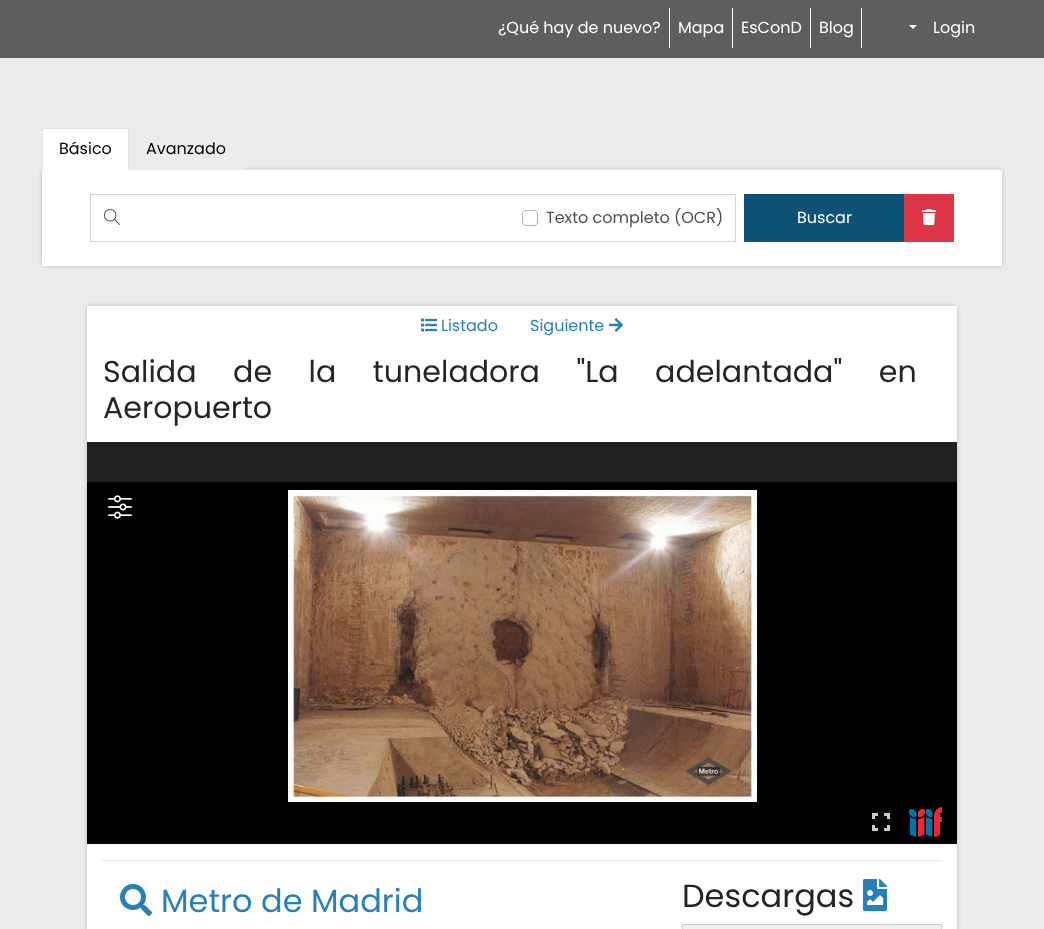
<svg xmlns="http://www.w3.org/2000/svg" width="1044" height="929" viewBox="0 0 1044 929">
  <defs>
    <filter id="blur1" x="-50%" y="-200%" width="200%" height="500%"><feGaussianBlur stdDeviation="2.5"/></filter>
  </defs>
  <rect width="100%" height="100%" fill="#ececec"/>
  <rect x="0" y="0" width="1044" height="58" fill="#5e5e5e"/>
  <rect x="669" y="8" width="1" height="40" fill="#ffffff"/>
  <text x="498" y="33" font-family="Poppins" font-size="16" fill="#ffffff">¿Qué hay de nuevo?</text>
  <rect x="732" y="8" width="1" height="40" fill="#ffffff"/>
  <text x="678" y="33" font-family="Poppins" font-size="16" fill="#ffffff">Mapa</text>
  <rect x="810" y="8" width="1" height="40" fill="#ffffff"/>
  <text x="741" y="33" font-family="Poppins" font-size="16" fill="#ffffff">EsConD</text>
  <rect x="861" y="8" width="1" height="40" fill="#ffffff"/>
  <text x="819" y="33" font-family="Poppins" font-size="16" fill="#ffffff">Blog</text>
  <path d="M909 25H917L913 29Z" fill="#ffffff"/>
  <text x="933" y="33" font-family="Poppins" font-size="16" fill="#ffffff">Login</text>
  <rect x="42" y="170" width="960" height="96" fill="#000000" fill-opacity="0.2" filter="url(#blur1)"/>
  <rect x="243" y="169" width="759" height="1" fill="#dee2e6"/>
  <rect x="43" y="129" width="85" height="40" fill="#ffffff"/>
  <rect x="42" y="128" width="87" height="1" fill="#dee2e6"/>
  <rect x="128" y="128" width="1" height="42" fill="#dee2e6"/>
  <rect x="42" y="169" width="87" height="1" fill="#ffffff"/>
  <rect x="42" y="128" width="1" height="42" fill="#dee2e6"/>
  <text x="59" y="154" font-family="Poppins" font-size="16" fill="#000000">Básico</text>
  <rect x="129" y="166" width="114" height="4" fill="#ebebeb"/>
  <text x="146" y="154" font-family="Poppins" font-size="16" fill="#000000">Avanzado</text>
  <rect x="42" y="170" width="960" height="96" fill="#ffffff"/>
  <rect x="90.5" y="194.5" width="408" height="47" fill="none" stroke="#ced4da"/>
  <rect x="498" y="195" width="1" height="46" fill="#ffffff"/>
  <rect x="498" y="194" width="238" height="1" fill="#ced4da"/>
  <rect x="735" y="194" width="1" height="48" fill="#ced4da"/>
  <rect x="498" y="241" width="238" height="1" fill="#ced4da"/>
  <rect x="522.5" y="210.5" width="15" height="15" rx="3.5" fill="none" stroke="#adb5bd"/>
  <text x="546" y="223" font-family="Poppins" font-size="16" fill="#495057">Texto completo (OCR)</text>
  <rect x="904" y="194" width="50" height="48" fill="#dc3545"/>
  <image x="922" y="209" width="14" height="16" href="img1.png"/>
  <image x="104" y="209" width="16" height="16" href="img2.png"/>
  <rect x="744" y="194" width="160" height="48" fill="#0e5275"/>
  <text x="797" y="223" font-family="Poppins" font-size="16" fill="#ffffff">Buscar</text>
  <rect x="87" y="306" width="870" height="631" fill="#000000" fill-opacity="0.2" filter="url(#blur1)"/>
  <rect x="87" y="306" width="870" height="623" fill="#ffffff"/>
  <image x="421" y="318" width="16" height="14" href="img3.png"/>
  <text x="441" y="331" font-family="Poppins" font-size="16" fill="#2980b9">Listado</text>
  <text x="530" y="331" font-family="Poppins" font-size="16" fill="#2980b9">Siguiente</text>
  <image x="609" y="318" width="14" height="14" href="img4.png"/>
  <text x="103" y="382" word-spacing="28.5" font-family="Poppins" font-size="30.1" fill="#212529">Salida de la tuneladora "La adelantada" en</text>
  <text x="103" y="418" font-family="Poppins" font-size="30.1" fill="#212529">Aeropuerto</text>
  <image x="87" y="442" width="870" height="402" href="img5.png"/>
  <rect x="102" y="860" width="840" height="1" fill="#e6e6e6"/>
  <image x="120" y="884" width="32" height="32" href="img6.png"/>
  <text x="161" y="912" font-family="Poppins" font-size="32" fill="#2980b9">Metro de Madrid</text>
  <text x="682" y="907" font-family="Poppins" font-size="32" fill="#212529">Descargas</text>
  <image x="863" y="879" width="24" height="32" href="img7.png"/>
  <rect x="682.5" y="924.5" width="259" height="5" fill="#f0f0f0" stroke="#cccccc"/>
</svg>
